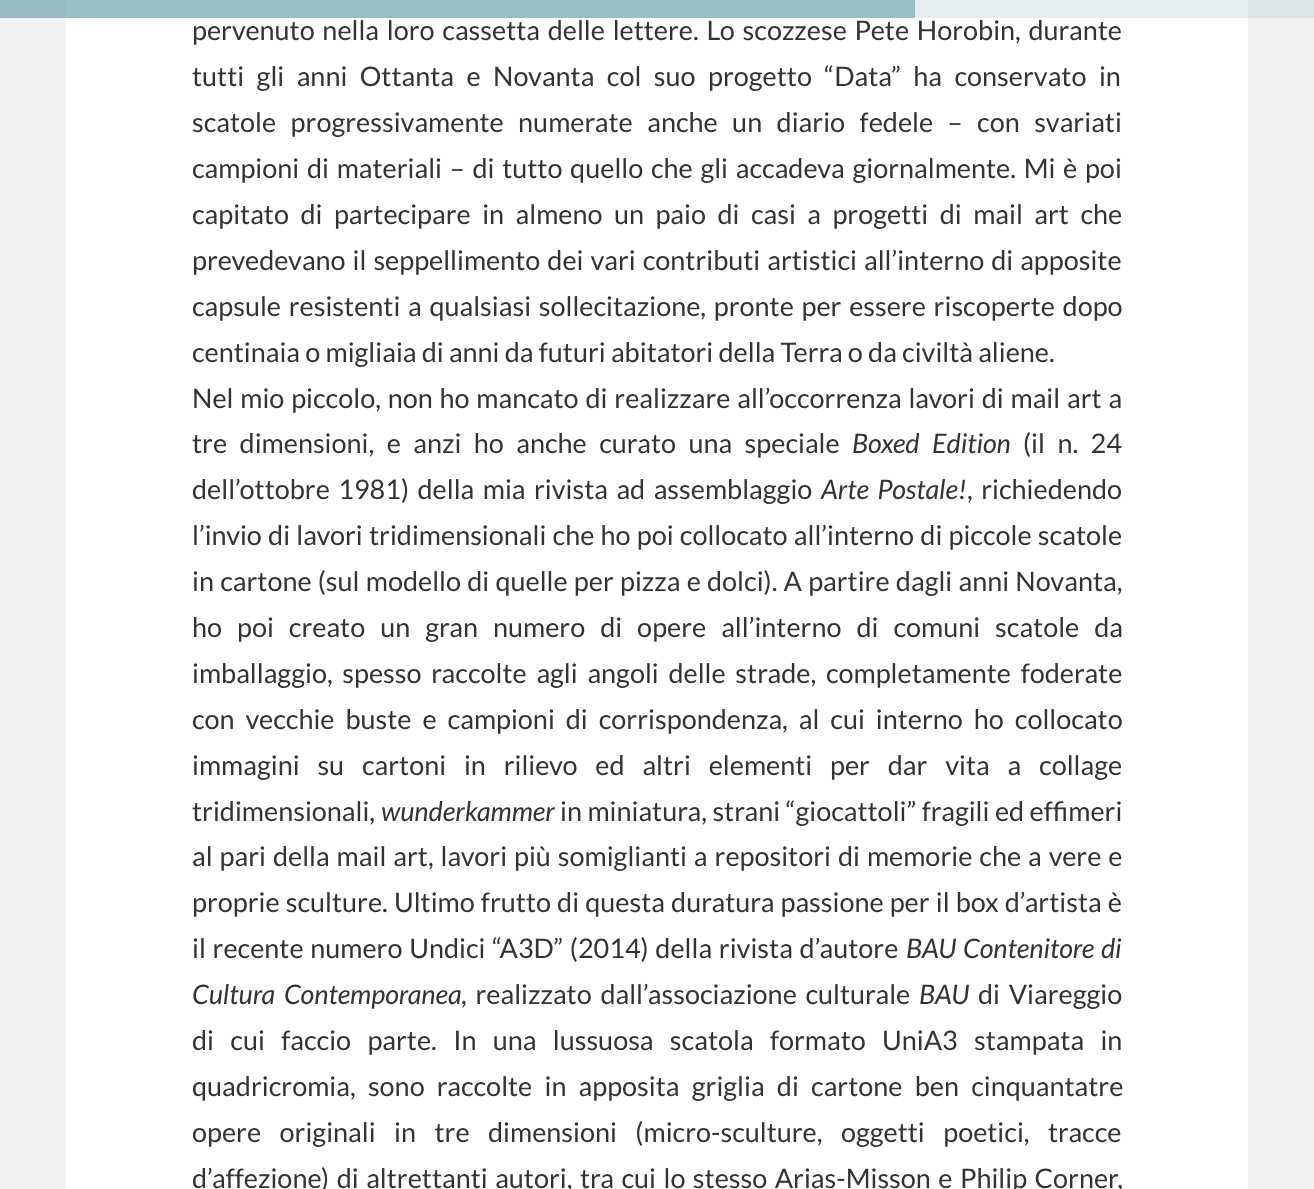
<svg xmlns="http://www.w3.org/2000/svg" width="1314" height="1189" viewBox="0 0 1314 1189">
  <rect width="100%" height="100%" fill="#f2f2f2"/>
  <rect x="1248" y="0" width="66" height="18" fill="#dfe6e9"/>
  <rect x="0" y="0" width="66" height="18" fill="#96bbc2"/>
  <rect x="66" y="18" width="1182" height="1171" fill="#ffffff"/>
  <rect x="915" y="0" width="333" height="18" fill="#e6edf0"/>
  <rect x="66" y="0" width="849" height="18" fill="#99bfc6"/>
  <text x="192" y="40" word-spacing="2.5" font-family="Lato" font-size="27" fill="#333333">pervenuto nella loro cassetta delle lettere. Lo scozzese Pete Horobin, durante</text>
  <text x="192" y="86" word-spacing="7.25" font-family="Lato" font-size="27" fill="#333333">tutti gli anni Ottanta e Novanta col suo progetto “Data” ha conservato in</text>
  <text x="192" y="132" word-spacing="9.25" font-family="Lato" font-size="27" fill="#333333">scatole progressivamente numerate anche un diario fedele – con svariati</text>
  <text x="192" y="178" word-spacing="2.5" font-family="Lato" font-size="27" fill="#333333">campioni di materiali – di tutto quello che gli accadeva giornalmente. Mi è poi</text>
  <text x="192" y="224" word-spacing="6.25" font-family="Lato" font-size="27" fill="#333333">capitato di partecipare in almeno un paio di casi a progetti di mail art che</text>
  <text x="192" y="270" word-spacing="1.75" font-family="Lato" font-size="27" fill="#333333">prevedevano il seppellimento dei vari contributi artistici all’interno di apposite</text>
  <text x="192" y="316" word-spacing="2.5" font-family="Lato" font-size="27" fill="#333333">capsule resistenti a qualsiasi sollecitazione, pronte per essere riscoperte dopo</text>
  <text x="192" y="362" font-family="Lato" font-size="27" fill="#333333">centinaia o migliaia di anni da futuri abitatori della Terra o da civiltà aliene.</text>
  <text x="192" y="408" word-spacing="1.6" font-family="Lato" font-size="27" fill="#333333">Nel mio piccolo, non ho mancato di realizzare all’occorrenza lavori di mail art a</text>
  <text x="192" y="453" word-spacing="7.25" font-family="Lato" font-size="27" fill="#333333">tre dimensioni, e anzi ho anche curato una speciale</text>
  <text x="852" y="453" word-spacing="7.25" font-family="Lato" font-size="27" font-style="italic" fill="#333333">Boxed Edition</text>
  <text x="1023" y="453" word-spacing="7.25" font-family="Lato" font-size="27" fill="#333333">(il n. 24</text>
  <text x="192" y="499" word-spacing="3.25" font-family="Lato" font-size="27" fill="#333333">dell’ottobre 1981) della mia rivista ad assemblaggio</text>
  <text x="821" y="499" word-spacing="3.25" font-family="Lato" font-size="27" font-style="italic" fill="#333333">Arte Postale!</text>
  <text x="967" y="499" word-spacing="3.25" font-family="Lato" font-size="27" fill="#333333">, richiedendo</text>
  <text x="192" y="545" word-spacing="1" font-family="Lato" font-size="27" fill="#333333">l’invio di lavori tridimensionali che ho poi collocato all’interno di piccole scatole</text>
  <text x="192" y="591" word-spacing="1" font-family="Lato" font-size="27" fill="#333333">in cartone (sul modello di quelle per pizza e dolci). A partire dagli anni Novanta,</text>
  <text x="192" y="637" word-spacing="9.75" font-family="Lato" font-size="27" fill="#333333">ho poi creato un gran numero di opere all’interno di comuni scatole da</text>
  <text x="192" y="683" word-spacing="4.5" font-family="Lato" font-size="27" fill="#333333">imballaggio, spesso raccolte agli angoli delle strade, completamente foderate</text>
  <text x="192" y="729" word-spacing="5.75" font-family="Lato" font-size="27" fill="#333333">con vecchie buste e campioni di corrispondenza, al cui interno ho collocato</text>
  <text x="192" y="775" word-spacing="12.6" font-family="Lato" font-size="27" fill="#333333">immagini su cartoni in rilievo ed altri elementi per dar vita a collage</text>
  <text x="192" y="821" font-family="Lato" font-size="27" fill="#333333">tridimensionali,</text>
  <text x="381" y="821" font-family="Lato" font-size="27" font-style="italic" fill="#333333">wunderkammer</text>
  <text x="560" y="821" word-spacing="0.25" font-family="Lato" font-size="27" fill="#333333">in miniatura, strani “giocattoli” fragili ed effimeri</text>
  <text x="192" y="866" word-spacing="1.75" font-family="Lato" font-size="27" fill="#333333">al pari della mail art, lavori più somiglianti a repositori di memorie che a vere e</text>
  <text x="192" y="912" word-spacing="0.9" font-family="Lato" font-size="27" fill="#333333">proprie sculture. Ultimo frutto di questa duratura passione per il box d’artista è</text>
  <text x="192" y="958" word-spacing="1.5" font-family="Lato" font-size="27" fill="#333333">il recente numero Undici “A3D” (2014) della rivista d’autore</text>
  <text x="906" y="958" word-spacing="1.5" font-family="Lato" font-size="27" font-style="italic" fill="#333333">BAU Contenitore di</text>
  <text x="192" y="1004" word-spacing="3.5" font-family="Lato" font-size="27" font-style="italic" fill="#333333">Cultura Contemporanea</text>
  <text x="461" y="1004" word-spacing="3.5" font-family="Lato" font-size="27" fill="#333333">, realizzato dall’associazione culturale</text>
  <text x="919" y="1004" font-family="Lato" font-size="27" font-style="italic" fill="#333333">BAU</text>
  <text x="978" y="1004" word-spacing="3.5" font-family="Lato" font-size="27" fill="#333333">di Viareggio</text>
  <text x="192" y="1050" word-spacing="11.1" font-family="Lato" font-size="27" fill="#333333">di cui faccio parte. In una lussuosa scatola formato UniA3 stampata in</text>
  <text x="192" y="1096" word-spacing="7" font-family="Lato" font-size="27" fill="#333333">quadricromia, sono raccolte in apposita griglia di cartone ben cinquantatre</text>
  <text x="192" y="1142" word-spacing="13.25" font-family="Lato" font-size="27" fill="#333333">opere originali in tre dimensioni (micro-sculture, oggetti poetici, tracce</text>
  <text x="192" y="1188" word-spacing="2.25" font-family="Lato" font-size="27" fill="#333333">d’affezione) di altrettanti autori, tra cui lo stesso Arias-Misson e Philip Corner,</text>
</svg>
